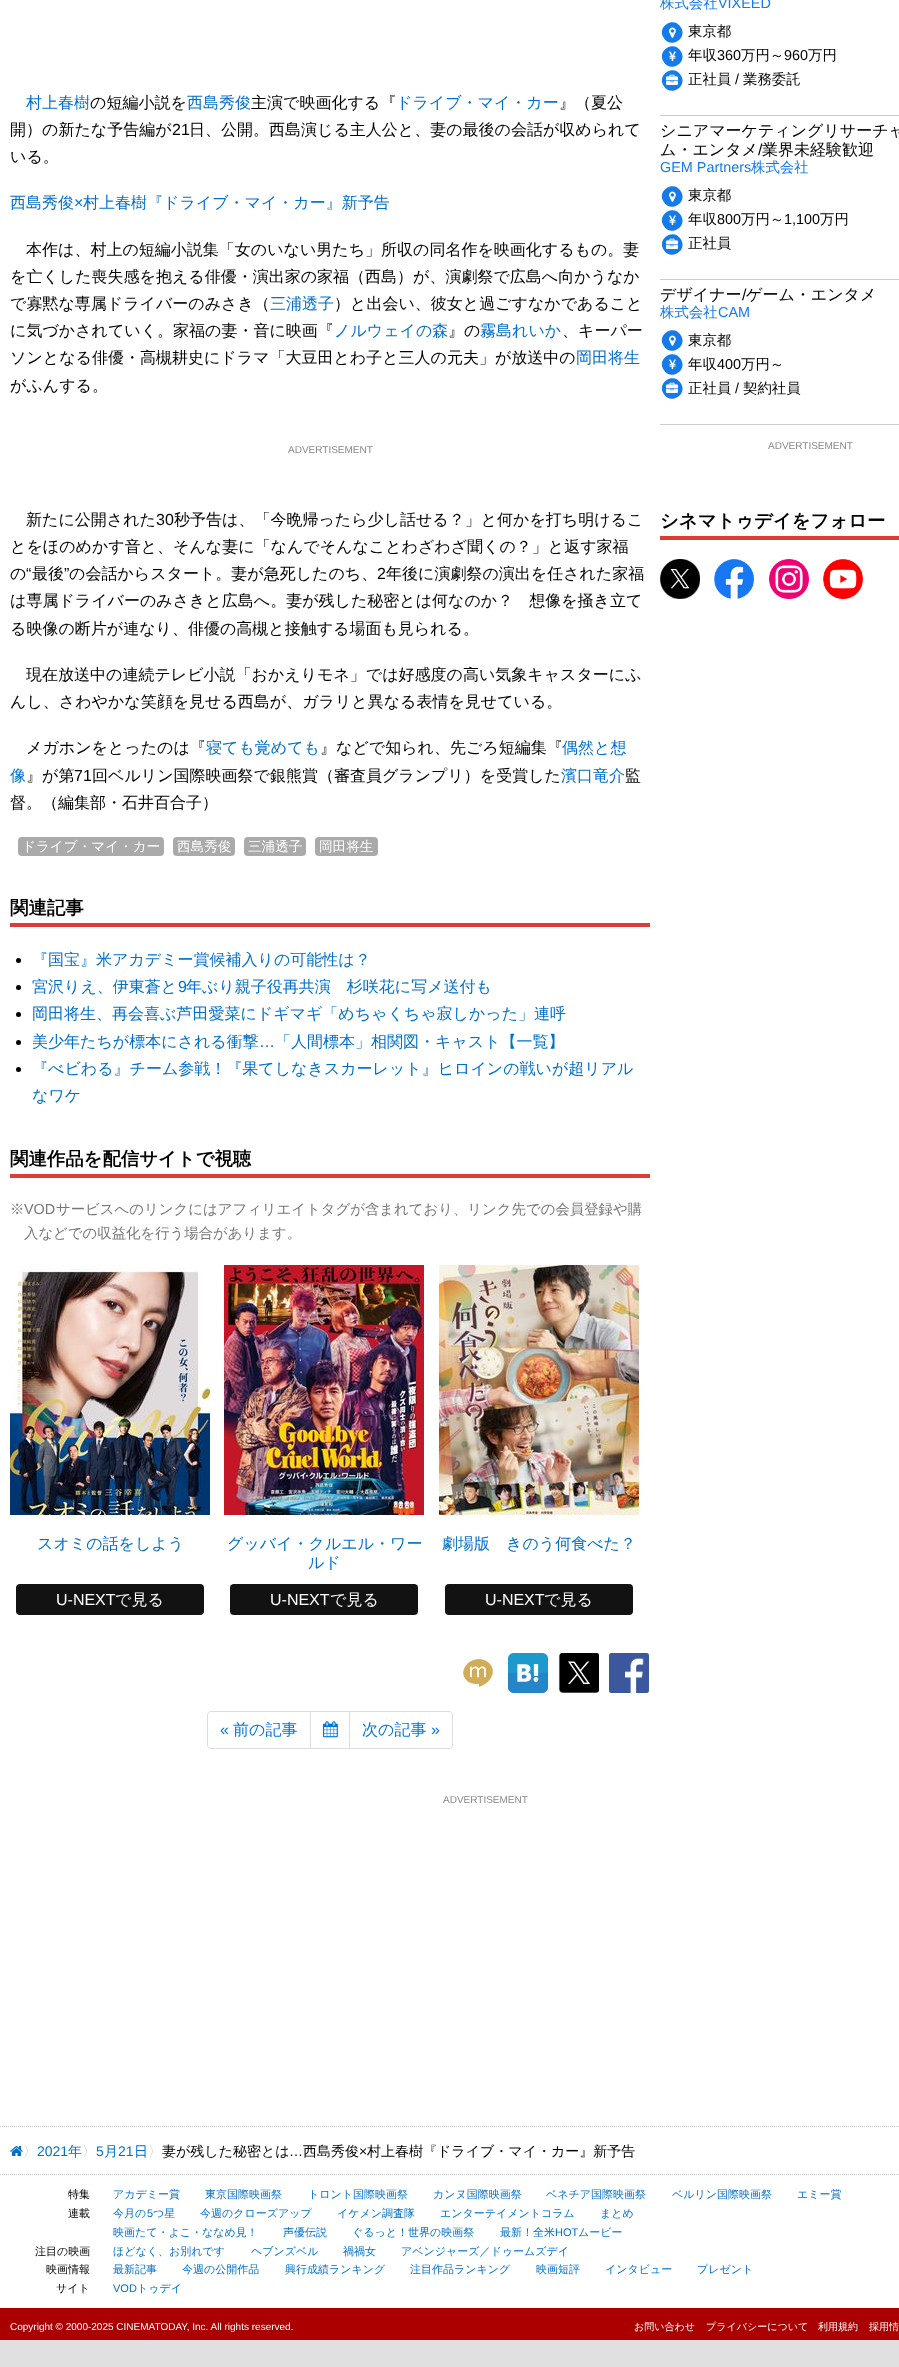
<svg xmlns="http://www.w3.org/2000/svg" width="899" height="2367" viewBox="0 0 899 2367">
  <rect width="100%" height="100%" fill="#e0e0e0"/>
  <rect x="0" y="0" width="899" height="2308" fill="#ffffff"/>
  <text x="26" y="108" font-family="WenQuanYi Zen Hei" font-size="16" font-weight="500" fill="#0070c9">村上春樹</text>
  <text x="90" y="108" font-family="WenQuanYi Zen Hei" font-size="16" font-weight="500" fill="#000000">の短編小説を</text>
  <text x="187" y="108" font-family="WenQuanYi Zen Hei" font-size="16" font-weight="500" fill="#0070c9">西島秀俊</text>
  <text x="251" y="108" font-family="WenQuanYi Zen Hei" font-size="16" font-weight="500" fill="#000000">主演で映画化する『</text>
  <text x="396" y="108" font-family="WenQuanYi Zen Hei" font-size="16" font-weight="500" fill="#0070c9">ドライブ・マイ・カー</text>
  <text x="559" y="108" font-family="WenQuanYi Zen Hei" font-size="16" font-weight="500" fill="#000000">』（夏公</text>
  <text x="10" y="135" font-family="WenQuanYi Zen Hei" font-size="16" font-weight="500" fill="#000000">開）の新たな予告編が</text>
  <text x="172" y="135" font-family="Liberation Sans" font-size="16" fill="#000000">21</text>
  <text x="189" y="135" font-family="WenQuanYi Zen Hei" font-size="16" font-weight="500" fill="#000000">日、公開。西島演じる主人公と、妻の最後の会話が収められて</text>
  <text x="10" y="162" font-family="WenQuanYi Zen Hei" font-size="16" font-weight="500" fill="#000000">いる。</text>
  <text x="10" y="208" font-family="WenQuanYi Zen Hei" font-size="16" font-weight="500" fill="#0070c9">西島秀俊</text>
  <text x="74" y="208" font-family="Liberation Sans" font-size="16" fill="#0070c9">×</text>
  <text x="83" y="208" font-family="WenQuanYi Zen Hei" font-size="16" font-weight="500" fill="#0070c9">村上春樹『ドライブ・マイ・カー』新予告</text>
  <text x="26" y="255" font-family="WenQuanYi Zen Hei" font-size="16" font-weight="500" fill="#000000">本作は、村上の短編小説集「女のいない男たち」所収の同名作を映画化するもの。妻</text>
  <text x="10" y="282" font-family="WenQuanYi Zen Hei" font-size="16" font-weight="500" fill="#000000">を亡くした喪失感を抱える俳優・演出家の家福（西島）が、演劇祭で広島へ向かうなか</text>
  <text x="10" y="309" font-family="WenQuanYi Zen Hei" font-size="16" font-weight="500" fill="#000000">で寡黙な専属ドライバーのみさき（</text>
  <text x="270" y="309" font-family="WenQuanYi Zen Hei" font-size="16" font-weight="500" fill="#0070c9">三浦透子</text>
  <text x="334" y="309" font-family="WenQuanYi Zen Hei" font-size="16" font-weight="500" fill="#000000">）と出会い、彼女と過ごすなかであること</text>
  <text x="10" y="336" font-family="WenQuanYi Zen Hei" font-size="16" font-weight="500" fill="#000000">に気づかされていく。家福の妻・音に映画『</text>
  <text x="334" y="336" font-family="WenQuanYi Zen Hei" font-size="16" font-weight="500" fill="#0070c9">ノルウェイの森</text>
  <text x="448" y="336" font-family="WenQuanYi Zen Hei" font-size="16" font-weight="500" fill="#000000">』の</text>
  <text x="480" y="336" font-family="WenQuanYi Zen Hei" font-size="16" font-weight="500" fill="#0070c9">霧島れいか</text>
  <text x="562" y="336" font-family="WenQuanYi Zen Hei" font-size="16" font-weight="500" fill="#000000">、キーパー</text>
  <text x="10" y="363" font-family="WenQuanYi Zen Hei" font-size="16" font-weight="500" fill="#000000">ソンとなる俳優・高槻耕史にドラマ「大豆田とわ子と三人の元夫」が放送中の</text>
  <text x="576" y="363" font-family="WenQuanYi Zen Hei" font-size="16" font-weight="500" fill="#0070c9">岡田将生</text>
  <text x="10" y="391" font-family="WenQuanYi Zen Hei" font-size="16" font-weight="500" fill="#000000">がふんする。</text>
  <text x="288" y="453" font-family="Liberation Sans" font-size="10" fill="#888888">ADVERTISEMENT</text>
  <text x="26" y="525" font-family="WenQuanYi Zen Hei" font-size="16" font-weight="500" fill="#000000">新たに公開された</text>
  <text x="156" y="525" font-family="Liberation Sans" font-size="16" fill="#000000">30</text>
  <text x="174" y="525" font-family="WenQuanYi Zen Hei" font-size="16" font-weight="500" fill="#000000">秒予告は、「今晩帰ったら少し話せる？」と何かを打ち明けるこ</text>
  <text x="10" y="552" font-family="WenQuanYi Zen Hei" font-size="16" font-weight="500" fill="#000000">とをほのめかす音と、そんな妻に「なんでそんなことわざわざ聞くの？」と返す家福</text>
  <text x="10" y="579" font-family="WenQuanYi Zen Hei" font-size="16" font-weight="500" fill="#000000">の</text>
  <text x="26" y="579" font-family="Liberation Sans" font-size="16" fill="#000000">“</text>
  <text x="32" y="579" font-family="WenQuanYi Zen Hei" font-size="16" font-weight="500" fill="#000000">最後</text>
  <text x="64" y="579" font-family="Liberation Sans" font-size="16" fill="#000000">”</text>
  <text x="69" y="579" font-family="WenQuanYi Zen Hei" font-size="16" font-weight="500" fill="#000000">の会話からスタート。妻が急死したのち、</text>
  <text x="377" y="579" font-family="Liberation Sans" font-size="16" fill="#000000">2</text>
  <text x="386" y="579" font-family="WenQuanYi Zen Hei" font-size="16" font-weight="500" fill="#000000">年後に演劇祭の演出を任された家福</text>
  <text x="10" y="606" font-family="WenQuanYi Zen Hei" font-size="16" font-weight="500" fill="#000000">は専属ドライバーのみさきと広島へ。妻が残した秘密とは何なのか？　想像を掻き立て</text>
  <text x="10" y="634" font-family="WenQuanYi Zen Hei" font-size="16" font-weight="500" fill="#000000">る映像の断片が連なり、俳優の高槻と接触する場面も見られる。</text>
  <text x="26" y="680" font-family="WenQuanYi Zen Hei" font-size="16" font-weight="500" fill="#000000">現在放送中の連続テレビ小説「おかえりモネ」では好感度の高い気象キャスターにふ</text>
  <text x="10" y="707" font-family="WenQuanYi Zen Hei" font-size="16" font-weight="500" fill="#000000">んし、さわやかな笑顔を見せる西島が、ガラリと異なる表情を見せている。</text>
  <text x="26" y="753" font-family="WenQuanYi Zen Hei" font-size="16" font-weight="500" fill="#000000">メガホンをとったのは『</text>
  <text x="206" y="753" font-family="WenQuanYi Zen Hei" font-size="16" font-weight="500" fill="#0070c9">寝ても覚めても</text>
  <text x="320" y="753" font-family="WenQuanYi Zen Hei" font-size="16" font-weight="500" fill="#000000">』などで知られ、先ごろ短編集『</text>
  <text x="562" y="753" font-family="WenQuanYi Zen Hei" font-size="16" font-weight="500" fill="#0070c9">偶然と想</text>
  <text x="10" y="781" font-family="WenQuanYi Zen Hei" font-size="16" font-weight="500" fill="#0070c9">像</text>
  <text x="26" y="781" font-family="WenQuanYi Zen Hei" font-size="16" font-weight="500" fill="#000000">』が第</text>
  <text x="74" y="781" font-family="Liberation Sans" font-size="16" fill="#000000">71</text>
  <text x="92" y="781" font-family="WenQuanYi Zen Hei" font-size="16" font-weight="500" fill="#000000">回ベルリン国際映画祭で銀熊賞（審査員グランプリ）を受賞した</text>
  <text x="561" y="781" font-family="WenQuanYi Zen Hei" font-size="16" font-weight="500" fill="#0070c9">濱口竜介</text>
  <text x="625" y="781" font-family="WenQuanYi Zen Hei" font-size="16" font-weight="500" fill="#000000">監</text>
  <text x="10" y="808" font-family="WenQuanYi Zen Hei" font-size="16" font-weight="500" fill="#000000">督。（編集部・石井百合子）</text>
  <rect x="18" y="837" width="146" height="19" rx="4" fill="#aaaaaa"/>
  <text x="22" y="851" font-family="WenQuanYi Zen Hei" font-size="13.6" font-weight="500" fill="#ffffff">ドライブ・マイ・カー</text>
  <rect x="173" y="837" width="62" height="19" rx="4" fill="#aaaaaa"/>
  <text x="177" y="851" font-family="WenQuanYi Zen Hei" font-size="13.6" font-weight="500" fill="#ffffff">西島秀俊</text>
  <rect x="244" y="837" width="62" height="19" rx="4" fill="#aaaaaa"/>
  <text x="248" y="851" font-family="WenQuanYi Zen Hei" font-size="13.6" font-weight="500" fill="#ffffff">三浦透子</text>
  <rect x="315" y="837" width="63" height="19" rx="4" fill="#aaaaaa"/>
  <text x="319" y="851" font-family="WenQuanYi Zen Hei" font-size="13.6" font-weight="500" fill="#ffffff">岡田将生</text>
  <rect x="10" y="923" width="640" height="4" fill="#dc3c36"/>
  <text x="10" y="914" font-family="WenQuanYi Zen Hei" font-size="18.4" font-weight="bold" fill="#000000">関連記事</text>
  <circle cx="18.5" cy="960.5" r="2.5" fill="#000000"/>
  <text x="32" y="965" font-family="WenQuanYi Zen Hei" font-size="16" font-weight="500" fill="#0070c9">『国宝』米アカデミー賞候補入りの可能性は？</text>
  <circle cx="18.5" cy="987.5" r="2.5" fill="#000000"/>
  <text x="32" y="992" font-family="WenQuanYi Zen Hei" font-size="16" font-weight="500" fill="#0070c9">宮沢りえ、伊東蒼と</text>
  <text x="178" y="992" font-family="Liberation Sans" font-size="16" fill="#0070c9">9</text>
  <text x="186" y="992" font-family="WenQuanYi Zen Hei" font-size="16" font-weight="500" fill="#0070c9">年ぶり親子役再共演　杉咲花に写メ送付も</text>
  <circle cx="18.5" cy="1014.5" r="2.5" fill="#000000"/>
  <text x="32" y="1019" font-family="WenQuanYi Zen Hei" font-size="16" font-weight="500" fill="#0070c9">岡田将生、再会喜ぶ芦田愛菜にドギマギ「めちゃくちゃ寂しかった」連呼</text>
  <circle cx="18.5" cy="1042.5" r="2.5" fill="#000000"/>
  <text x="32" y="1047" font-family="WenQuanYi Zen Hei" font-size="16" font-weight="500" fill="#0070c9">美少年たちが標本にされる衝撃</text>
  <text x="275" y="1047" font-family="WenQuanYi Zen Hei" font-size="16" font-weight="500" fill="#0070c9">「人間標本」相関図・キャスト【一覧】</text>
  <text x="259" y="1047" font-family="Liberation Sans" font-size="16" fill="#0070c9">…</text>
  <circle cx="18.5" cy="1069.5" r="2.5" fill="#000000"/>
  <text x="32" y="1074" font-family="WenQuanYi Zen Hei" font-size="16" font-weight="500" fill="#0070c9">『べビわる』チーム参戦！『果てしなきスカーレット』ヒロインの戦いが超リアル</text>
  <text x="32" y="1101" font-family="WenQuanYi Zen Hei" font-size="16" font-weight="500" fill="#0070c9">なワケ</text>
  <rect x="10" y="1174" width="640" height="4" fill="#dc3c36"/>
  <text x="10" y="1165" font-family="WenQuanYi Zen Hei" font-size="18.4" font-weight="bold" fill="#000000">関連作品を配信サイトで視聴</text>
  <text x="10" y="1214" font-family="WenQuanYi Zen Hei" font-size="14.4" font-weight="500" fill="#777777">※</text>
  <text x="24" y="1214" font-family="Liberation Sans" font-size="14.4" fill="#777777">VOD</text>
  <text x="56" y="1214" font-family="WenQuanYi Zen Hei" font-size="14.4" font-weight="500" fill="#777777">サービスへのリンクにはアフィリエイトタグが含まれており、リンク先での会員登録や購</text>
  <text x="24" y="1238" font-family="WenQuanYi Zen Hei" font-size="14.4" font-weight="500" fill="#777777">入などでの収益化を行う場合があります。</text>
  <image x="10" y="1265" width="200" height="250" href="img1.png"/>
  <text x="37" y="1549" font-family="WenQuanYi Zen Hei" font-size="16" font-weight="500" fill="#0070c9">スオミの話をしよう</text>
  <rect x="16" y="1584" width="188" height="31" rx="4" fill="#121212"/>
  <text x="56" y="1605" font-family="Liberation Sans" font-size="16" fill="#ffffff">U-NEXT</text>
  <text x="115" y="1605" font-family="WenQuanYi Zen Hei" font-size="16" font-weight="500" fill="#ffffff">で見る</text>
  <image x="224" y="1265" width="200" height="250" href="img2.png"/>
  <text x="227" y="1549" font-family="WenQuanYi Zen Hei" font-size="16" font-weight="500" fill="#0070c9">グッバイ・クルエル・ワー</text>
  <text x="308" y="1568" font-family="WenQuanYi Zen Hei" font-size="16" font-weight="500" fill="#0070c9">ルド</text>
  <rect x="230" y="1584" width="188" height="31" rx="4" fill="#121212"/>
  <text x="270" y="1605" font-family="Liberation Sans" font-size="16" fill="#ffffff">U-NEXT</text>
  <text x="330" y="1605" font-family="WenQuanYi Zen Hei" font-size="16" font-weight="500" fill="#ffffff">で見る</text>
  <image x="439" y="1265" width="200" height="250" href="img3.png"/>
  <text x="442" y="1549" font-family="WenQuanYi Zen Hei" font-size="16" font-weight="500" fill="#0070c9">劇場版　きのう何食べた？</text>
  <rect x="445" y="1584" width="188" height="31" rx="4" fill="#121212"/>
  <text x="485" y="1605" font-family="Liberation Sans" font-size="16" fill="#ffffff">U-NEXT</text>
  <text x="544" y="1605" font-family="WenQuanYi Zen Hei" font-size="16" font-weight="500" fill="#ffffff">で見る</text>
  <image x="463" y="1659" width="30" height="28" href="img4.png"/>
  <image x="508" y="1653" width="40" height="40" href="img5.png"/>
  <image x="559" y="1653" width="40" height="40" href="img6.png"/>
  <image x="609" y="1653" width="40" height="40" href="img7.png"/>
  <path d="M211 1711.5H310.5V1748.5H211C209 1748.5 207.5 1747 207.5 1745V1715C207.5 1713 209 1711.5 211 1711.5Z" fill="none" stroke="#dddddd"/>
  <text x="220" y="1735" font-family="Liberation Sans" font-size="16" fill="#0275d8">«</text>
  <text x="233" y="1735" font-family="WenQuanYi Zen Hei" font-size="16" font-weight="500" fill="#0275d8">前の記事</text>
  <rect x="310.5" y="1711.5" width="39" height="37" fill="none" stroke="#dddddd"/>
  <image x="323" y="1721" width="15" height="17" href="img8.png"/>
  <path d="M349.5 1711.5H449C451 1711.5 452.5 1713 452.5 1715V1745C452.5 1747 451 1748.5 449 1748.5H349.5Z" fill="#ffffff" stroke="#dddddd"/>
  <text x="362" y="1735" font-family="WenQuanYi Zen Hei" font-size="16" font-weight="500" fill="#0275d8">次の記事</text>
  <text x="431" y="1735" font-family="Liberation Sans" font-size="16" fill="#0275d8">»</text>
  <rect x="660" y="115" width="239" height="1" fill="#cccccc"/>
  <text x="660" y="8" font-family="WenQuanYi Zen Hei" font-size="14.4" font-weight="500" fill="#147be9">株式会社</text>
  <text x="718" y="8" font-family="Liberation Sans" font-size="14.4" fill="#147be9">VIXEED</text>
  <path d="M663.5 37.5C656.5 26 674.5 15.5 681 27.5C688 39 670 49.5 663.5 37.5Z" fill="#147be9"/>
  <image x="669" y="27" width="7" height="11" href="img9.png"/>
  <text x="688" y="36" font-family="WenQuanYi Zen Hei" font-size="14.4" font-weight="500" fill="#000000">東京都</text>
  <path d="M663.5 61.5C656.5 50 674.5 39.5 681 51.5C688 63 670 73.5 663.5 61.5Z" fill="#147be9"/>
  <image x="669" y="51" width="7" height="10" href="img10.png"/>
  <text x="688" y="60" font-family="WenQuanYi Zen Hei" font-size="14.4" font-weight="500" fill="#000000">年収</text>
  <text x="717" y="60" font-family="Liberation Sans" font-size="14.4" fill="#000000">360</text>
  <text x="741" y="60" font-family="WenQuanYi Zen Hei" font-size="14.4" font-weight="500" fill="#000000">万円～</text>
  <text x="784" y="60" font-family="Liberation Sans" font-size="14.4" fill="#000000">960</text>
  <text x="808" y="60" font-family="WenQuanYi Zen Hei" font-size="14.4" font-weight="500" fill="#000000">万円</text>
  <path d="M663.5 85.5C656.5 74 674.5 63.5 681 75.5C688 87 670 97.5 663.5 85.5Z" fill="#147be9"/>
  <image x="666" y="74" width="12" height="11" href="img11.png"/>
  <text x="688" y="84" font-family="WenQuanYi Zen Hei" font-size="14.4" font-weight="500" fill="#000000">正社員</text>
  <text x="735" y="84" font-family="Liberation Sans" font-size="14.4" fill="#000000">/</text>
  <text x="743" y="84" font-family="WenQuanYi Zen Hei" font-size="14.4" font-weight="500" fill="#000000">業務委託</text>
  <rect x="660" y="279" width="239" height="1" fill="#cccccc"/>
  <text x="660" y="136" font-family="WenQuanYi Zen Hei" font-size="16" font-weight="500" fill="#000000">シニアマーケティングリサーチャ</text>
  <text x="660" y="155" font-family="WenQuanYi Zen Hei" font-size="16" font-weight="500" fill="#000000">ム・エンタメ</text>
  <text x="758" y="155" font-family="Liberation Sans" font-size="16" fill="#000000">/</text>
  <text x="762" y="155" font-family="WenQuanYi Zen Hei" font-size="16" font-weight="500" fill="#000000">業界未経験歓迎</text>
  <text x="660" y="172" font-family="Liberation Sans" font-size="14.4" fill="#147be9">GEM Partners</text>
  <text x="751" y="172" font-family="WenQuanYi Zen Hei" font-size="14.4" font-weight="500" fill="#147be9">株式会社</text>
  <path d="M663.5 201.5C656.5 190 674.5 179.5 681 191.5C688 203 670 213.5 663.5 201.5Z" fill="#147be9"/>
  <image x="669" y="191" width="7" height="11" href="img9.png"/>
  <text x="688" y="200" font-family="WenQuanYi Zen Hei" font-size="14.4" font-weight="500" fill="#000000">東京都</text>
  <path d="M663.5 225.5C656.5 214 674.5 203.5 681 215.5C688 227 670 237.5 663.5 225.5Z" fill="#147be9"/>
  <image x="669" y="215" width="7" height="10" href="img10.png"/>
  <text x="688" y="224" font-family="WenQuanYi Zen Hei" font-size="14.4" font-weight="500" fill="#000000">年収</text>
  <text x="717" y="224" font-family="Liberation Sans" font-size="14.4" fill="#000000">800</text>
  <text x="741" y="224" font-family="WenQuanYi Zen Hei" font-size="14.4" font-weight="500" fill="#000000">万円～</text>
  <text x="784" y="224" font-family="Liberation Sans" font-size="14.4" fill="#000000">1,100</text>
  <text x="820" y="224" font-family="WenQuanYi Zen Hei" font-size="14.4" font-weight="500" fill="#000000">万円</text>
  <path d="M663.5 249.5C656.5 238 674.5 227.5 681 239.5C688 251 670 261.5 663.5 249.5Z" fill="#147be9"/>
  <image x="666" y="238" width="12" height="11" href="img11.png"/>
  <text x="688" y="248" font-family="WenQuanYi Zen Hei" font-size="14.4" font-weight="500" fill="#000000">正社員</text>
  <rect x="660" y="424" width="239" height="1" fill="#cccccc"/>
  <text x="660" y="300" font-family="WenQuanYi Zen Hei" font-size="16" font-weight="500" fill="#000000">デザイナー</text>
  <text x="742" y="300" font-family="Liberation Sans" font-size="16" fill="#000000">/</text>
  <text x="746" y="300" font-family="WenQuanYi Zen Hei" font-size="16" font-weight="500" fill="#000000">ゲーム・エンタメ</text>
  <text x="660" y="317" font-family="WenQuanYi Zen Hei" font-size="14.4" font-weight="500" fill="#147be9">株式会社</text>
  <text x="718" y="317" font-family="Liberation Sans" font-size="14.4" fill="#147be9">CAM</text>
  <path d="M663.5 345.5C656.5 334 674.5 323.5 681 335.5C688 347 670 357.5 663.5 345.5Z" fill="#147be9"/>
  <image x="669" y="335" width="7" height="11" href="img9.png"/>
  <text x="688" y="345" font-family="WenQuanYi Zen Hei" font-size="14.4" font-weight="500" fill="#000000">東京都</text>
  <path d="M663.5 369.5C656.5 358 674.5 347.5 681 359.5C688 371 670 381.5 663.5 369.5Z" fill="#147be9"/>
  <image x="669" y="359" width="7" height="10" href="img10.png"/>
  <text x="688" y="369" font-family="WenQuanYi Zen Hei" font-size="14.4" font-weight="500" fill="#000000">年収</text>
  <text x="717" y="369" font-family="Liberation Sans" font-size="14.4" fill="#000000">400</text>
  <text x="741" y="369" font-family="WenQuanYi Zen Hei" font-size="14.4" font-weight="500" fill="#000000">万円～</text>
  <path d="M663.5 393.5C656.5 382 674.5 371.5 681 383.5C688 395 670 405.5 663.5 393.5Z" fill="#147be9"/>
  <image x="666" y="382" width="12" height="11" href="img11.png"/>
  <text x="688" y="393" font-family="WenQuanYi Zen Hei" font-size="14.4" font-weight="500" fill="#000000">正社員</text>
  <text x="735" y="393" font-family="Liberation Sans" font-size="14.4" fill="#000000">/</text>
  <text x="743" y="393" font-family="WenQuanYi Zen Hei" font-size="14.4" font-weight="500" fill="#000000">契約社員</text>
  <text x="768" y="449" font-family="Liberation Sans" font-size="10" fill="#888888">ADVERTISEMENT</text>
  <rect x="660" y="536" width="239" height="4" fill="#dc3c36"/>
  <text x="660" y="527" font-family="WenQuanYi Zen Hei" font-size="18.4" font-weight="bold" fill="#000000">シネマトゥデイをフォロー</text>
  <image x="660" y="559" width="40" height="40" href="img12.png"/>
  <image x="714" y="559" width="40" height="40" href="img13.png"/>
  <image x="769" y="559" width="40" height="40" href="img14.png"/>
  <image x="823" y="559" width="40" height="40" href="img15.png"/>
  <text x="443" y="1803" font-family="Liberation Sans" font-size="10" fill="#888888">ADVERTISEMENT</text>
  <path d="M0 2126.5H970" fill="none" stroke="#cccccc" stroke-dasharray="1 1"/>
  <path d="M0 2174.5H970" fill="none" stroke="#cccccc" stroke-dasharray="1 1"/>
  <image x="10" y="2146" width="13" height="10" href="img16.png"/>
  <text x="23" y="2156" font-family="WenQuanYi Zen Hei" font-size="14" font-weight="500" fill="#cccccc">〉</text>
  <text x="37" y="2156" font-family="Liberation Sans" font-size="14" fill="#0070c9">2021</text>
  <text x="68" y="2156" font-family="WenQuanYi Zen Hei" font-size="14" font-weight="500" fill="#0070c9">年</text>
  <text x="82" y="2156" font-family="WenQuanYi Zen Hei" font-size="14" font-weight="500" fill="#cccccc">〉</text>
  <text x="96" y="2156" font-family="Liberation Sans" font-size="14" fill="#0070c9">5</text>
  <text x="104" y="2156" font-family="WenQuanYi Zen Hei" font-size="14" font-weight="500" fill="#0070c9">月</text>
  <text x="118" y="2156" font-family="Liberation Sans" font-size="14" fill="#0070c9">21</text>
  <text x="134" y="2156" font-family="WenQuanYi Zen Hei" font-size="14" font-weight="500" fill="#0070c9">日</text>
  <text x="148" y="2156" font-family="WenQuanYi Zen Hei" font-size="14" font-weight="500" fill="#cccccc">〉</text>
  <text x="162" y="2156" font-family="WenQuanYi Zen Hei" font-size="14" font-weight="500" fill="#000000">妻が残した秘密とは</text>
  <text x="289" y="2156" font-family="Liberation Sans" font-size="14" fill="#000000">…</text>
  <text x="303" y="2156" font-family="WenQuanYi Zen Hei" font-size="14" font-weight="500" fill="#000000">西島秀俊</text>
  <text x="359" y="2156" font-family="Liberation Sans" font-size="14" fill="#000000">×</text>
  <text x="367" y="2156" font-family="WenQuanYi Zen Hei" font-size="14" font-weight="500" fill="#000000">村上春樹『ドライブ・マイ・カー』新予告</text>
  <text x="68" y="2198" font-family="WenQuanYi Zen Hei" font-size="11" font-weight="500" fill="#000000">特集</text>
  <text x="113" y="2198" font-family="WenQuanYi Zen Hei" font-size="11" font-weight="500" fill="#0070c9">アカデミー賞</text>
  <text x="205" y="2198" font-family="WenQuanYi Zen Hei" font-size="11" font-weight="500" fill="#0070c9">東京国際映画祭</text>
  <text x="308" y="2198" font-family="WenQuanYi Zen Hei" font-size="11" font-weight="500" fill="#0070c9">トロント国際映画祭</text>
  <text x="433" y="2198" font-family="WenQuanYi Zen Hei" font-size="11" font-weight="500" fill="#0070c9">カンヌ国際映画祭</text>
  <text x="546" y="2198" font-family="WenQuanYi Zen Hei" font-size="11" font-weight="500" fill="#0070c9">ベネチア国際映画祭</text>
  <text x="672" y="2198" font-family="WenQuanYi Zen Hei" font-size="11" font-weight="500" fill="#0070c9">ベルリン国際映画祭</text>
  <text x="797" y="2198" font-family="WenQuanYi Zen Hei" font-size="11" font-weight="500" fill="#0070c9">エミー賞</text>
  <text x="68" y="2217" font-family="WenQuanYi Zen Hei" font-size="11" font-weight="500" fill="#000000">連載</text>
  <text x="113" y="2217" font-family="WenQuanYi Zen Hei" font-size="11" font-weight="500" fill="#0070c9">今月の</text>
  <text x="147" y="2217" font-family="Liberation Sans" font-size="11" fill="#0070c9">5</text>
  <text x="153" y="2217" font-family="WenQuanYi Zen Hei" font-size="11" font-weight="500" fill="#0070c9">つ星</text>
  <text x="200" y="2217" font-family="WenQuanYi Zen Hei" font-size="11" font-weight="500" fill="#0070c9">今週のクローズアップ</text>
  <text x="337" y="2217" font-family="WenQuanYi Zen Hei" font-size="11" font-weight="500" fill="#0070c9">イケメン調査隊</text>
  <text x="440" y="2217" font-family="WenQuanYi Zen Hei" font-size="11" font-weight="500" fill="#0070c9">エンターテイメントコラム</text>
  <text x="600" y="2217" font-family="WenQuanYi Zen Hei" font-size="11" font-weight="500" fill="#0070c9">まとめ</text>
  <text x="113" y="2236" font-family="WenQuanYi Zen Hei" font-size="11" font-weight="500" fill="#0070c9">映画たて・よこ・ななめ見！</text>
  <text x="283" y="2236" font-family="WenQuanYi Zen Hei" font-size="11" font-weight="500" fill="#0070c9">声優伝説</text>
  <text x="352" y="2236" font-family="WenQuanYi Zen Hei" font-size="11" font-weight="500" fill="#0070c9">ぐるっと！世界の映画祭</text>
  <text x="500" y="2236" font-family="WenQuanYi Zen Hei" font-size="11" font-weight="500" fill="#0070c9">最新！全米</text>
  <text x="555" y="2236" font-family="Liberation Sans" font-size="11" fill="#0070c9">HOT</text>
  <text x="578" y="2236" font-family="WenQuanYi Zen Hei" font-size="11" font-weight="500" fill="#0070c9">ムービー</text>
  <text x="35" y="2255" font-family="WenQuanYi Zen Hei" font-size="11" font-weight="500" fill="#000000">注目の映画</text>
  <text x="113" y="2255" font-family="WenQuanYi Zen Hei" font-size="11" font-weight="500" fill="#0070c9">ほどなく、お別れです</text>
  <text x="251" y="2255" font-family="WenQuanYi Zen Hei" font-size="11" font-weight="500" fill="#0070c9">ヘブンズベル</text>
  <text x="343" y="2255" font-family="WenQuanYi Zen Hei" font-size="11" font-weight="500" fill="#0070c9">禍禍女</text>
  <text x="401" y="2255" font-family="WenQuanYi Zen Hei" font-size="11" font-weight="500" fill="#0070c9">アベンジャーズ／ドゥームズデイ</text>
  <text x="46" y="2273" font-family="WenQuanYi Zen Hei" font-size="11" font-weight="500" fill="#000000">映画情報</text>
  <text x="113" y="2273" font-family="WenQuanYi Zen Hei" font-size="11" font-weight="500" fill="#0070c9">最新記事</text>
  <text x="182" y="2273" font-family="WenQuanYi Zen Hei" font-size="11" font-weight="500" fill="#0070c9">今週の公開作品</text>
  <text x="285" y="2273" font-family="WenQuanYi Zen Hei" font-size="11" font-weight="500" fill="#0070c9">興行成績ランキング</text>
  <text x="410" y="2273" font-family="WenQuanYi Zen Hei" font-size="11" font-weight="500" fill="#0070c9">注目作品ランキング</text>
  <text x="536" y="2273" font-family="WenQuanYi Zen Hei" font-size="11" font-weight="500" fill="#0070c9">映画短評</text>
  <text x="605" y="2273" font-family="WenQuanYi Zen Hei" font-size="11" font-weight="500" fill="#0070c9">インタビュー</text>
  <text x="697" y="2273" font-family="WenQuanYi Zen Hei" font-size="11" font-weight="500" fill="#0070c9">プレゼント</text>
  <text x="56" y="2292" font-family="WenQuanYi Zen Hei" font-size="11" font-weight="500" fill="#000000">サイト</text>
  <text x="113" y="2292" font-family="Liberation Sans" font-size="11" fill="#0070c9">VOD</text>
  <text x="137" y="2292" font-family="WenQuanYi Zen Hei" font-size="11" font-weight="500" fill="#0070c9">トゥデイ</text>
  <rect x="0" y="2308" width="899" height="32" fill="#aa0000"/>
  <text x="10" y="2330" font-family="Liberation Sans" font-size="10" fill="#ffffff">Copyright © 2000-2025 CINEMATODAY, Inc. All rights reserved.</text>
  <text x="634" y="2330" font-family="WenQuanYi Zen Hei" font-size="10" font-weight="500" fill="#ffffff">お問い合わせ</text>
  <text x="706" y="2330" font-family="WenQuanYi Zen Hei" font-size="10" font-weight="500" fill="#ffffff">プライバシーについて</text>
  <text x="818" y="2330" font-family="WenQuanYi Zen Hei" font-size="10" font-weight="500" fill="#ffffff">利用規約</text>
  <text x="869" y="2330" font-family="WenQuanYi Zen Hei" font-size="10" font-weight="500" fill="#ffffff">採用情</text>
</svg>
